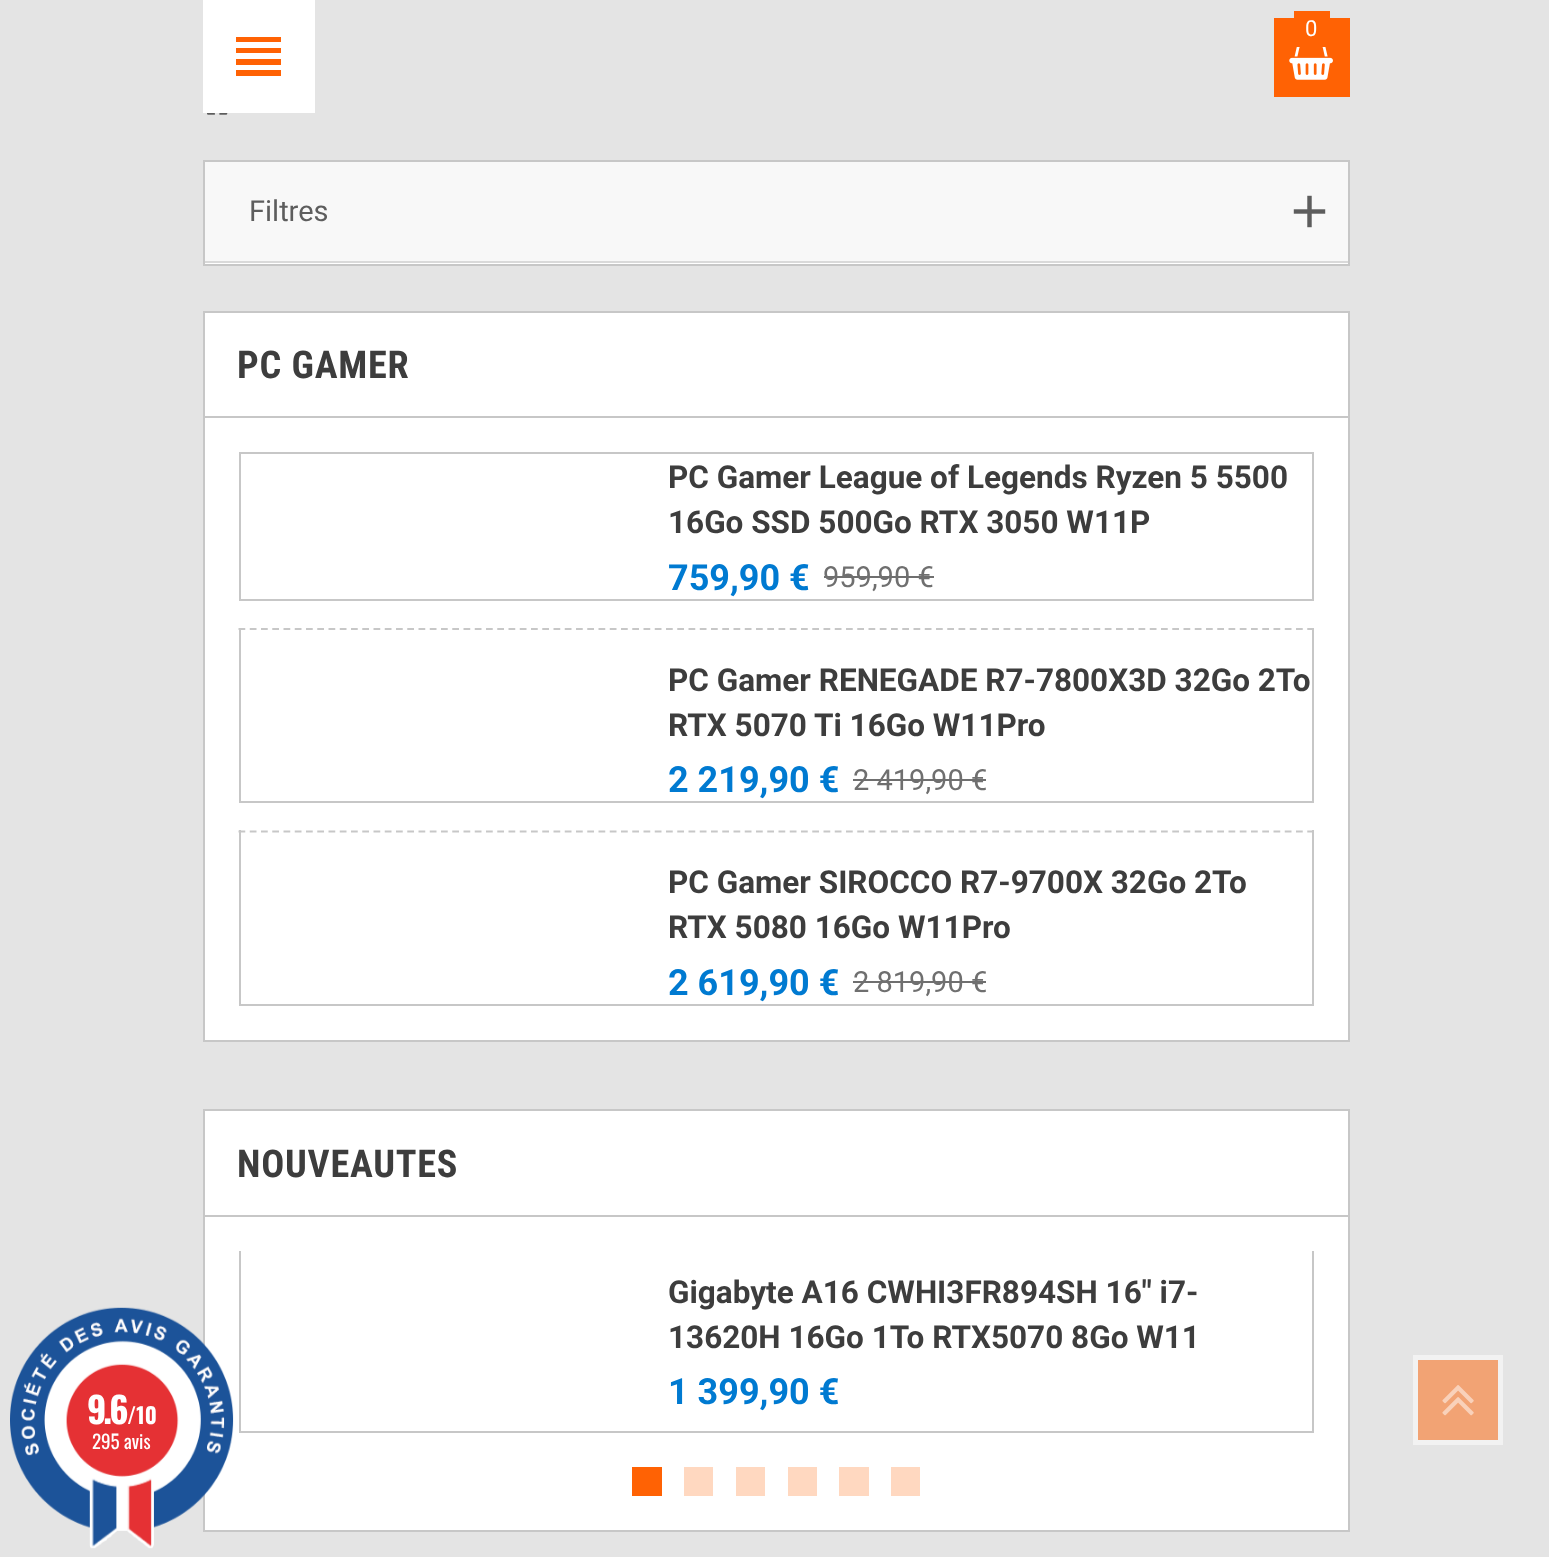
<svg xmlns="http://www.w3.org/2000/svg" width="1549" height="1557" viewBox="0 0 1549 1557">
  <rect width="100%" height="100%" fill="#e4e4e4"/>
  <rect x="204" y="1110" width="1145" height="421" fill="#ffffff" stroke="#c7c7c7" stroke-width="2"/>
  <image x="10" y="1307" width="224" height="242" href="img1.png"/>
  <text x="87" y="1424" font-family="Oswald" font-size="36" font-weight="bold" letter-spacing="-3" fill="#ffffff">9.6</text>
  <text x="127" y="1424" font-family="Oswald" font-size="22" font-weight="bold" fill="#ffffff">/10</text>
  <text x="92" y="1449" font-family="Oswald" font-size="19" fill="#ffffff">295 avis</text>
  <rect x="203" y="0" width="112" height="113" fill="#ffffff"/>
  <path d="M236 37H281V42H236ZM236 53V48H281V53ZM236 76V70H281V76ZM236 65V59H281V65Z" fill="#ff6204"/>
  <rect x="1274" y="18" width="76" height="79" fill="#ff6204"/>
  <rect x="1294" y="11" width="36" height="7" fill="#ff6204"/>
  <text x="1305" y="36" font-family="Roboto" font-size="22" fill="#ffffff">0</text>
  <image x="1289" y="47" width="44" height="33" href="img2.png"/>
  <image x="207" y="113" width="21" height="2" href="img3.png"/>
  <rect x="205" y="263" width="1143" height="1" fill="#ffffff"/>
  <rect x="204" y="161" width="1145" height="104" fill="none" stroke="#c7c7c7" stroke-width="2"/>
  <rect x="205" y="162" width="1143" height="99" fill="#f8f8f8"/>
  <rect x="205" y="261" width="1143" height="2" fill="#d9d9d9"/>
  <text x="249" y="221" font-family="Roboto" font-size="29" fill="#5d5d5d">Filtres</text>
  <image x="1293" y="195" width="33" height="33" href="img4.png"/>
  <rect x="204" y="312" width="1145" height="729" fill="#ffffff" stroke="#c7c7c7" stroke-width="2"/>
  <rect x="205" y="416" width="1143" height="2" fill="#c7c7c7"/>
  <text x="237" y="378" font-family="Roboto Condensed" font-size="38.25" font-weight="bold" letter-spacing="0.75" fill="#3d3d3d">PC GAMER</text>
  <rect x="240" y="453" width="1073" height="147" fill="none" stroke="#c7c7c7" stroke-width="2"/>
  <text x="668" y="488" font-family="Roboto" font-size="31.5" font-weight="bold" fill="#3d3d3d">PC Gamer League of Legends Ryzen 5 5500</text>
  <text x="668" y="533" font-family="Roboto" font-size="31.5" font-weight="bold" fill="#3d3d3d">16Go SSD 500Go RTX 3050 W11P</text>
  <text x="668" y="590" font-family="Roboto" font-size="36" font-weight="bold" fill="#007ad1">759,90 €</text>
  <text x="823" y="587" font-family="Roboto" font-size="29" fill="#6f6f6f">959,90 €</text>
  <rect x="824" y="576" width="110" height="2" fill="#6f6f6f"/>
  <path d="M238.5 629H1314" fill="none" stroke="#c7c7c7" stroke-width="2.2" stroke-dasharray="6.75 4.5"/>
  <rect x="1312" y="628" width="2" height="175" fill="#c7c7c7"/>
  <rect x="239" y="801" width="1075" height="2" fill="#c7c7c7"/>
  <rect x="239" y="628" width="2" height="175" fill="#c7c7c7"/>
  <text x="668" y="691" font-family="Roboto" font-size="31.5" font-weight="bold" fill="#3d3d3d">PC Gamer RENEGADE R7-7800X3D 32Go 2To</text>
  <text x="668" y="736" font-family="Roboto" font-size="31.5" font-weight="bold" fill="#3d3d3d">RTX 5070 Ti 16Go W11Pro</text>
  <text x="668" y="792" font-family="Roboto" font-size="36" font-weight="bold" fill="#007ad1">2 219,90 €</text>
  <text x="853" y="790" font-family="Roboto" font-size="29" fill="#6f6f6f">2 419,90 €</text>
  <rect x="853" y="779" width="133" height="2" fill="#6f6f6f"/>
  <path d="M238.5 831.5H1314" fill="none" stroke="#c7c7c7" stroke-width="2.2" stroke-dasharray="6.75 4.5"/>
  <rect x="1312" y="830" width="2" height="176" fill="#c7c7c7"/>
  <rect x="239" y="1004" width="1075" height="2" fill="#c7c7c7"/>
  <rect x="239" y="830" width="2" height="176" fill="#c7c7c7"/>
  <text x="668" y="893" font-family="Roboto" font-size="31.5" font-weight="bold" fill="#3d3d3d">PC Gamer SIROCCO R7-9700X 32Go 2To</text>
  <text x="668" y="938" font-family="Roboto" font-size="31.5" font-weight="bold" fill="#3d3d3d">RTX 5080 16Go W11Pro</text>
  <text x="668" y="995" font-family="Roboto" font-size="36" font-weight="bold" fill="#007ad1">2 619,90 €</text>
  <text x="853" y="992" font-family="Roboto" font-size="29" fill="#6f6f6f">2 819,90 €</text>
  <rect x="853" y="981" width="133" height="2" fill="#6f6f6f"/>
  <rect x="205" y="1215" width="1143" height="2" fill="#c7c7c7"/>
  <text x="237" y="1177" font-family="Roboto Condensed" font-size="38.25" font-weight="bold" letter-spacing="0.75" fill="#3d3d3d">NOUVEAUTES</text>
  <rect x="1312" y="1251" width="2" height="182" fill="#c7c7c7"/>
  <rect x="239" y="1431" width="1075" height="2" fill="#c7c7c7"/>
  <rect x="239" y="1251" width="2" height="182" fill="#c7c7c7"/>
  <text x="668" y="1303" font-family="Roboto" font-size="31.5" font-weight="bold" fill="#3d3d3d">Gigabyte A16 CWHI3FR894SH 16" i7-</text>
  <text x="668" y="1348" font-family="Roboto" font-size="31.5" font-weight="bold" fill="#3d3d3d">13620H 16Go 1To RTX5070 8Go W11</text>
  <text x="668" y="1404" font-family="Roboto" font-size="36" font-weight="bold" fill="#007ad1">1 399,90 €</text>
  <rect x="632" y="1467" width="30" height="29" fill="#ff6204"/>
  <rect x="684" y="1467" width="29" height="29" fill="#ffd8c0"/>
  <rect x="736" y="1467" width="29" height="29" fill="#ffd8c0"/>
  <rect x="788" y="1467" width="29" height="29" fill="#ffd8c0"/>
  <rect x="839" y="1467" width="30" height="29" fill="#ffd8c0"/>
  <rect x="891" y="1467" width="29" height="29" fill="#ffd8c0"/>
  <rect x="1415.5" y="1357.5" width="85" height="85" fill="#f2a374" stroke="#f2f2f2" stroke-width="5"/>
  <image x="1442" y="1385" width="32" height="31" href="img5.png"/>
</svg>
